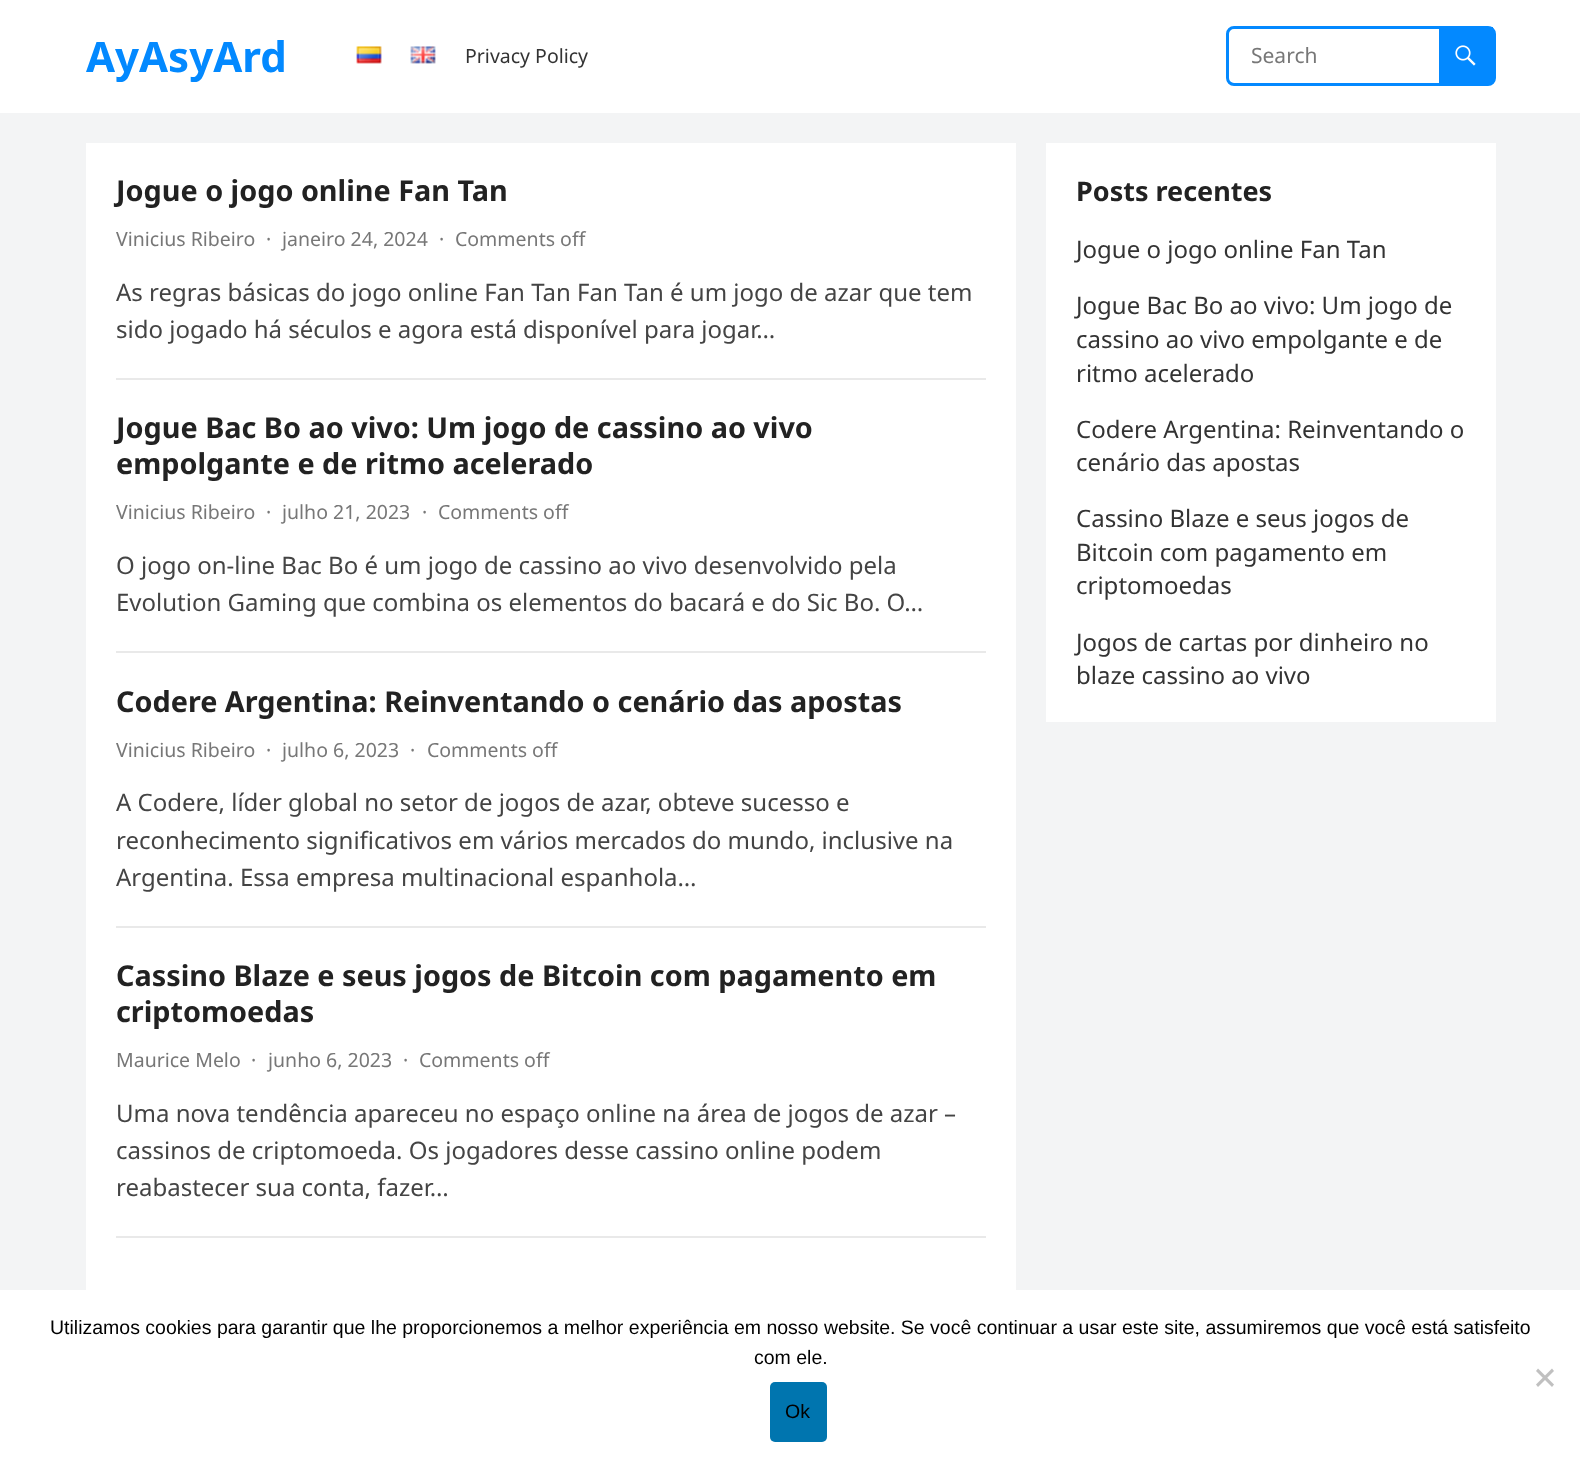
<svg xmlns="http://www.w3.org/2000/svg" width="1580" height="1464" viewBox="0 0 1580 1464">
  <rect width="100%" height="100%" fill="#f3f4f5"/>
  <rect x="0" y="0" width="1580" height="113" fill="#ffffff"/>
  <text x="86" y="72" font-family="Noto Sans" font-size="42" font-weight="bold" fill="#0389ff">AyAsyArd</text>
  <image x="356" y="46" width="26" height="18" href="img1.png"/>
  <image x="410" y="46" width="26" height="18" href="img2.png"/>
  <text x="465" y="63" font-family="Noto Sans" font-size="19.5" fill="#333333">Privacy Policy</text>
  <rect x="1227.5" y="27.5" width="267" height="57" rx="6.5" fill="none" stroke="#0389ff" stroke-width="3"/>
  <text x="1251" y="63" font-family="Noto Sans" font-size="21" fill="#777777">Search</text>
  <rect x="1439" y="27" width="54" height="56" fill="#0389ff"/>
  <image x="1455" y="45" width="21" height="21" href="img3.png"/>
  <rect x="86" y="143" width="930" height="1147" fill="#ffffff"/>
  <rect x="116" y="378" width="870" height="2" fill="#e9e9e9"/>
  <text x="116" y="201" font-family="Noto Sans" font-size="28.8" font-weight="bold" fill="#222222">Jogue o jogo online Fan Tan</text>
  <text x="116" y="246" font-family="Noto Sans" font-size="19.5" fill="#777777">Vinicius Ribeiro</text>
  <text x="266" y="246" font-family="Noto Sans" font-size="19.5" fill="#777777">·</text>
  <text x="282" y="246" font-family="Noto Sans" font-size="19.5" fill="#777777">janeiro 24, 2024</text>
  <text x="439" y="246" font-family="Noto Sans" font-size="19.5" fill="#777777">·</text>
  <text x="455" y="246" font-family="Noto Sans" font-size="19.5" fill="#777777">Comments off</text>
  <text x="116" y="301" font-family="Noto Sans" font-size="24" fill="#444444">As regras básicas do jogo online Fan Tan Fan Tan é um jogo de azar que tem</text>
  <text x="116" y="338" font-family="Noto Sans" font-size="24" fill="#444444">sido jogado há séculos e agora está disponível para jogar…</text>
  <rect x="116" y="651" width="870" height="2" fill="#e9e9e9"/>
  <text x="116" y="438" font-family="Noto Sans" font-size="28.8" font-weight="bold" fill="#222222">Jogue Bac Bo ao vivo: Um jogo de cassino ao vivo</text>
  <text x="116" y="474" font-family="Noto Sans" font-size="28.8" font-weight="bold" fill="#222222">empolgante e de ritmo acelerado</text>
  <text x="116" y="519" font-family="Noto Sans" font-size="19.5" fill="#777777">Vinicius Ribeiro</text>
  <text x="266" y="519" font-family="Noto Sans" font-size="19.5" fill="#777777">·</text>
  <text x="282" y="519" font-family="Noto Sans" font-size="19.5" fill="#777777">julho 21, 2023</text>
  <text x="422" y="519" font-family="Noto Sans" font-size="19.5" fill="#777777">·</text>
  <text x="438" y="519" font-family="Noto Sans" font-size="19.5" fill="#777777">Comments off</text>
  <text x="116" y="574" font-family="Noto Sans" font-size="24" fill="#444444">O jogo on-line Bac Bo é um jogo de cassino ao vivo desenvolvido pela</text>
  <text x="116" y="611" font-family="Noto Sans" font-size="24" fill="#444444">Evolution Gaming que combina os elementos do bacará e do Sic Bo. O…</text>
  <rect x="116" y="926" width="870" height="2" fill="#e9e9e9"/>
  <text x="116" y="712" font-family="Noto Sans" font-size="28.8" font-weight="bold" fill="#222222">Codere Argentina: Reinventando o cenário das apostas</text>
  <text x="116" y="757" font-family="Noto Sans" font-size="19.5" fill="#777777">Vinicius Ribeiro</text>
  <text x="266" y="757" font-family="Noto Sans" font-size="19.5" fill="#777777">·</text>
  <text x="282" y="757" font-family="Noto Sans" font-size="19.5" fill="#777777">julho 6, 2023</text>
  <text x="410" y="757" font-family="Noto Sans" font-size="19.5" fill="#777777">·</text>
  <text x="427" y="757" font-family="Noto Sans" font-size="19.5" fill="#777777">Comments off</text>
  <text x="116" y="811" font-family="Noto Sans" font-size="24" fill="#444444">A Codere, líder global no setor de jogos de azar, obteve sucesso e</text>
  <text x="116" y="849" font-family="Noto Sans" font-size="24" fill="#444444">reconhecimento significativos em vários mercados do mundo, inclusive na</text>
  <text x="116" y="886" font-family="Noto Sans" font-size="24" fill="#444444">Argentina. Essa empresa multinacional espanhola…</text>
  <rect x="116" y="1236" width="870" height="2" fill="#e9e9e9"/>
  <text x="116" y="986" font-family="Noto Sans" font-size="28.8" font-weight="bold" fill="#222222">Cassino Blaze e seus jogos de Bitcoin com pagamento em</text>
  <text x="116" y="1022" font-family="Noto Sans" font-size="28.8" font-weight="bold" fill="#222222">criptomoedas</text>
  <text x="116" y="1067" font-family="Noto Sans" font-size="19.5" fill="#777777">Maurice Melo</text>
  <text x="251" y="1067" font-family="Noto Sans" font-size="19.5" fill="#777777">·</text>
  <text x="268" y="1067" font-family="Noto Sans" font-size="19.5" fill="#777777">junho 6, 2023</text>
  <text x="403" y="1067" font-family="Noto Sans" font-size="19.5" fill="#777777">·</text>
  <text x="419" y="1067" font-family="Noto Sans" font-size="19.5" fill="#777777">Comments off</text>
  <text x="116" y="1122" font-family="Noto Sans" font-size="24" fill="#444444">Uma nova tendência apareceu no espaço online na área de jogos de azar –</text>
  <text x="116" y="1159" font-family="Noto Sans" font-size="24" fill="#444444">cassinos de criptomoeda. Os jogadores desse cassino online podem</text>
  <text x="116" y="1196" font-family="Noto Sans" font-size="24" fill="#444444">reabastecer sua conta, fazer…</text>
  <rect x="1046" y="143" width="450" height="579" fill="#ffffff"/>
  <text x="1076" y="201" font-family="Noto Sans" font-size="27" font-weight="bold" fill="#222222">Posts recentes</text>
  <text x="1076" y="258" font-family="Noto Sans" font-size="24" fill="#333333">Jogue o jogo online Fan Tan</text>
  <text x="1076" y="314" font-family="Noto Sans" font-size="24" fill="#333333">Jogue Bac Bo ao vivo: Um jogo de</text>
  <text x="1076" y="348" font-family="Noto Sans" font-size="24" fill="#333333">cassino ao vivo empolgante e de</text>
  <text x="1076" y="382" font-family="Noto Sans" font-size="24" fill="#333333">ritmo acelerado</text>
  <text x="1076" y="438" font-family="Noto Sans" font-size="24" fill="#333333">Codere Argentina: Reinventando o</text>
  <text x="1076" y="471" font-family="Noto Sans" font-size="24" fill="#333333">cenário das apostas</text>
  <text x="1076" y="527" font-family="Noto Sans" font-size="24" fill="#333333">Cassino Blaze e seus jogos de</text>
  <text x="1076" y="561" font-family="Noto Sans" font-size="24" fill="#333333">Bitcoin com pagamento em</text>
  <text x="1076" y="594" font-family="Noto Sans" font-size="24" fill="#333333">criptomoedas</text>
  <text x="1076" y="651" font-family="Noto Sans" font-size="24" fill="#333333">Jogos de cartas por dinheiro no</text>
  <text x="1076" y="684" font-family="Noto Sans" font-size="24" fill="#333333">blaze cassino ao vivo</text>
  <rect x="0" y="1290" width="1580" height="174" fill="#ffffff"/>
  <text x="50" y="1334" font-family="Liberation Sans" font-size="19.5" fill="#000000">Utilizamos cookies para garantir que lhe proporcionemos a melhor experiência em nosso website. Se você continuar a usar este site, assumiremos que você está satisfeito</text>
  <text x="754" y="1364" font-family="Liberation Sans" font-size="19.5" fill="#000000">com ele.</text>
  <path d="M1552 1368.5L1554 1371L1538 1387L1536 1384.5Z" fill="#c0c0c0"/>
  <path d="M1536 1371L1538 1368.5L1554 1384.5L1552 1387Z" fill="#c0c0c0"/>
  <rect x="770" y="1382" width="57" height="60" rx="5" fill="#0075af"/>
  <text x="785" y="1418" font-family="Liberation Sans" font-size="19.5" fill="#000000">Ok</text>
</svg>
